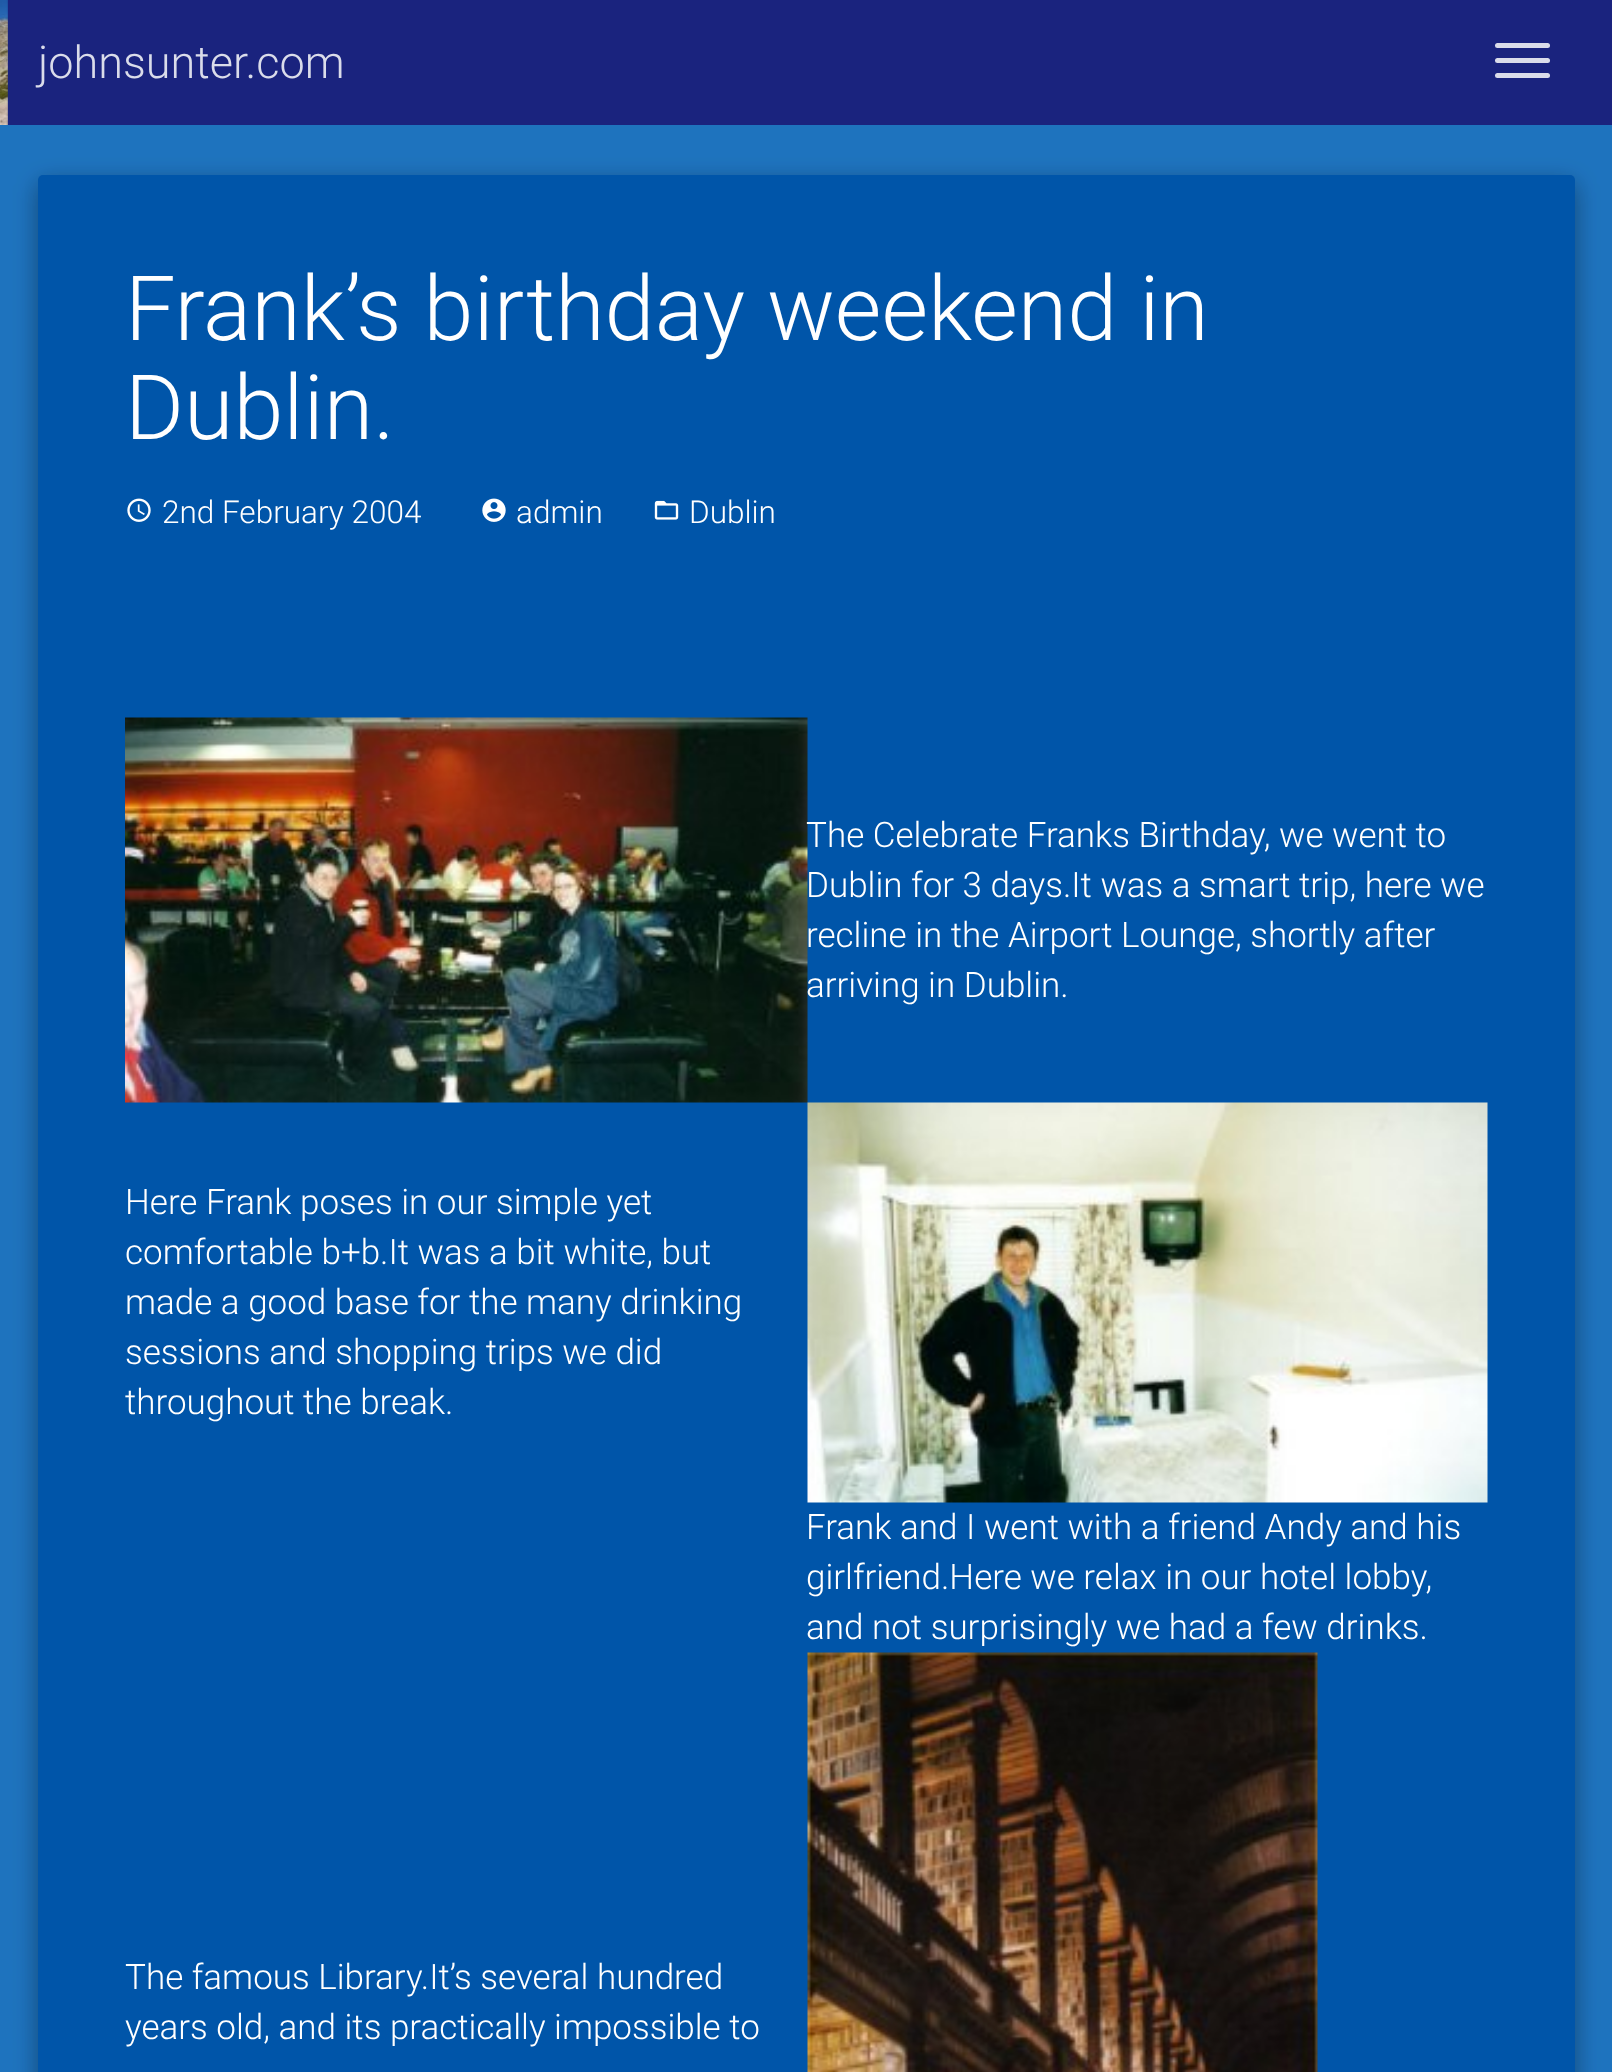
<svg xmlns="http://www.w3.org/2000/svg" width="1612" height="2072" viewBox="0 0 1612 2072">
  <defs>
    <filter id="blur1" x="-50%" y="-200%" width="200%" height="500%"><feGaussianBlur stdDeviation="12.5"/></filter>
  </defs>
  <rect width="100%" height="100%" fill="#1e73be"/>
  <rect x="6" y="0" width="1606" height="125" fill="#1a237e"/>
  <image x="0" y="0" width="8" height="125" href="img1.png"/>
  <text x="38" y="78" font-family="Roboto" font-size="45" font-weight="300" fill="#dadcea">johnsunter.com</text>
  <rect x="1495" y="43" width="55" height="5" rx="2.5" fill="#dadcea"/>
  <rect x="1495" y="58" width="55" height="5" rx="2.5" fill="#dadcea"/>
  <rect x="1495" y="73" width="55" height="5" rx="2.5" fill="#dadcea"/>
  <rect x="38" y="183" width="1537" height="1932" rx="5" fill="#000000" fill-opacity="0.16" filter="url(#blur1)"/>
  <rect x="38" y="183" width="1537" height="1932" rx="5" fill="#000000" fill-opacity="0.23" filter="url(#blur1)"/>
  <rect x="38" y="175" width="1537" height="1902" rx="5" fill="#0055a9"/>
  <text x="125" y="340" font-family="Roboto" font-size="90" font-weight="300" fill="#ffffff">Frank’s birthday weekend in</text>
  <text x="125" y="439" font-family="Roboto" font-size="90" font-weight="300" fill="#ffffff">Dublin.</text>
  <image x="127" y="498" width="24" height="24" href="img2.png"/>
  <text x="162" y="523" font-family="Roboto" font-size="31.5" font-weight="300" fill="#ffffff">2nd February 2004</text>
  <image x="482" y="498" width="24" height="24" href="img3.png"/>
  <text x="516" y="523" font-family="Roboto" font-size="31.5" font-weight="300" fill="#ffffff">admin</text>
  <image x="654" y="500" width="25" height="20" href="img4.png"/>
  <text x="689" y="523" font-family="Roboto" font-size="31.5" font-weight="300" fill="#ffffff">Dublin</text>
  <image x="125" y="717" width="683" height="386" href="img5.png"/>
  <text x="806" y="847" font-family="Roboto" font-size="35" font-weight="300" fill="#ffffff">The Celebrate Franks Birthday, we went to</text>
  <text x="806" y="897" font-family="Roboto" font-size="35" font-weight="300" fill="#ffffff">Dublin for 3 days.It was a smart trip, here we</text>
  <text x="806" y="947" font-family="Roboto" font-size="35" font-weight="300" fill="#ffffff">recline in the Airport Lounge, shortly after</text>
  <text x="806" y="997" font-family="Roboto" font-size="35" font-weight="300" fill="#ffffff">arriving in Dublin.</text>
  <text x="125" y="1214" font-family="Roboto" font-size="35" font-weight="300" fill="#ffffff">Here Frank poses in our simple yet</text>
  <text x="125" y="1264" font-family="Roboto" font-size="35" font-weight="300" fill="#ffffff">comfortable b+b.It was a bit white, but</text>
  <text x="125" y="1314" font-family="Roboto" font-size="35" font-weight="300" fill="#ffffff">made a good base for the many drinking</text>
  <text x="125" y="1364" font-family="Roboto" font-size="35" font-weight="300" fill="#ffffff">sessions and shopping trips we did</text>
  <text x="125" y="1414" font-family="Roboto" font-size="35" font-weight="300" fill="#ffffff">throughout the break.</text>
  <image x="807" y="1102" width="681" height="401" href="img6.png"/>
  <text x="806" y="1539" font-family="Roboto" font-size="35" font-weight="300" fill="#ffffff">Frank and I went with a friend Andy and his</text>
  <text x="806" y="1589" font-family="Roboto" font-size="35" font-weight="300" fill="#ffffff">girlfriend.Here we relax in our hotel lobby,</text>
  <text x="806" y="1639" font-family="Roboto" font-size="35" font-weight="300" fill="#ffffff">and not surprisingly we had a few drinks.</text>
  <text x="125" y="1989" font-family="Roboto" font-size="35" font-weight="300" fill="#ffffff">The famous Library.It’s several hundred</text>
  <text x="125" y="2039" font-family="Roboto" font-size="35" font-weight="300" fill="#ffffff">years old, and its practically impossible to</text>
  <image x="807" y="1652" width="511" height="420" href="img7.png"/>
</svg>
